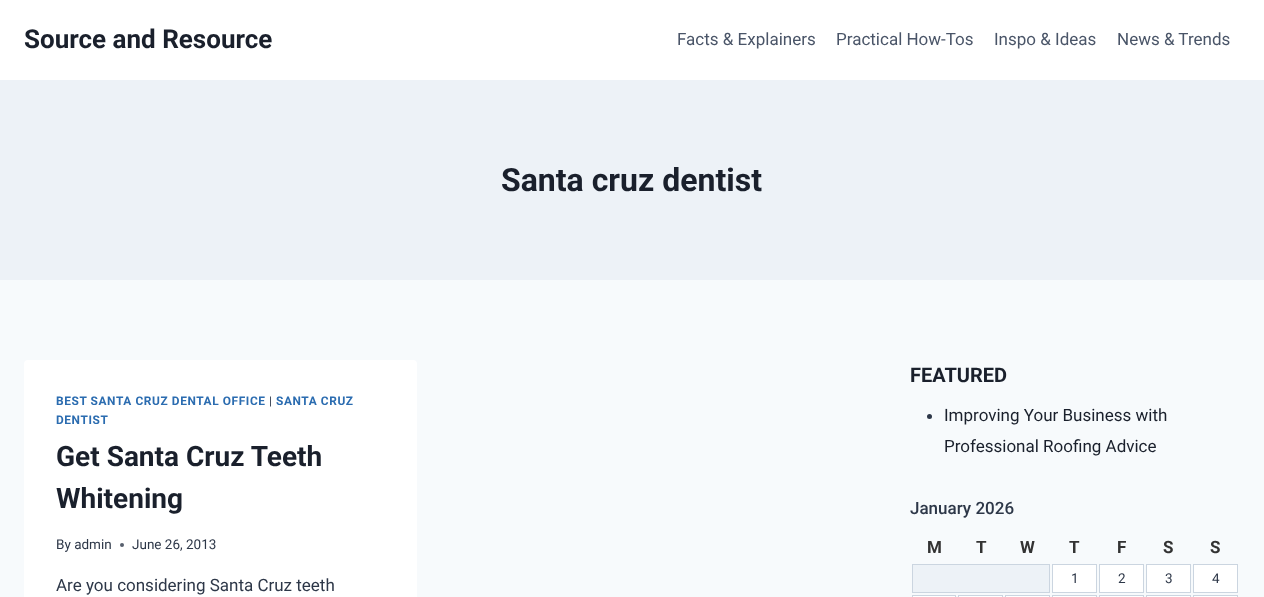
<svg xmlns="http://www.w3.org/2000/svg" width="1264" height="597" viewBox="0 0 1264 597">
  <rect width="100%" height="100%" fill="#f7fafc"/>
  <rect x="0" y="0" width="1264" height="80" fill="#ffffff"/>
  <text x="24" y="48" font-family="Roboto" font-size="26" font-weight="bold" fill="#1a202c">Source and Resource</text>
  <text x="677" y="45" font-family="Roboto" font-size="17" fill="#4a5568">Facts &amp; Explainers</text>
  <text x="836" y="45" font-family="Roboto" font-size="17" fill="#4a5568">Practical How-Tos</text>
  <text x="994" y="45" font-family="Roboto" font-size="17" fill="#4a5568">Inspo &amp; Ideas</text>
  <text x="1117" y="45" font-family="Roboto" font-size="17" fill="#4a5568">News &amp; Trends</text>
  <rect x="0" y="80" width="1264" height="200" fill="#edf2f7"/>
  <text x="501" y="191" font-family="Roboto" font-size="32" font-weight="bold" fill="#1a202c">Santa cruz dentist</text>
  <rect x="24" y="360" width="393" height="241" rx="4" fill="#ffffff"/>
  <text x="56" y="405" font-family="Roboto" font-size="11.9" font-weight="bold" letter-spacing="0.6" fill="#2b6cb0">BEST SANTA CRUZ DENTAL OFFICE</text>
  <text x="269" y="405" font-family="Roboto" font-size="11.9" letter-spacing="0.6" fill="#2d3748">|</text>
  <text x="276" y="405" font-family="Roboto" font-size="11.9" font-weight="bold" letter-spacing="0.6" fill="#2b6cb0">SANTA CRUZ</text>
  <text x="56" y="424" font-family="Roboto" font-size="11.9" font-weight="bold" letter-spacing="0.6" fill="#2b6cb0">DENTIST</text>
  <text x="56" y="466" font-family="Roboto" font-size="28" font-weight="bold" fill="#1a202c">Get Santa Cruz Teeth</text>
  <text x="56" y="508" font-family="Roboto" font-size="28" font-weight="bold" fill="#1a202c">Whitening</text>
  <text x="56" y="549" font-family="Roboto" font-size="13.5" fill="#2d3748">By admin</text>
  <circle cx="122" cy="545" r="2" fill="#575f6d"/>
  <text x="132" y="549" font-family="Roboto" font-size="13.5" fill="#2d3748">June 26, 2013</text>
  <text x="56" y="591" font-family="Roboto" font-size="17" fill="#2d3748">Are you considering Santa Cruz teeth</text>
  <text x="910" y="382" font-family="Roboto" font-size="20" font-weight="bold" fill="#1a202c">FEATURED</text>
  <circle cx="929.5" cy="416.5" r="2.5" fill="#2d3748"/>
  <text x="944" y="421" font-family="Roboto" font-size="17" fill="#1a202c">Improving Your Business with</text>
  <text x="944" y="452" font-family="Roboto" font-size="17" fill="#1a202c">Professional Roofing Advice</text>
  <text x="910" y="514" font-family="Roboto" font-size="17" font-weight="500" fill="#2d3748">January 2026</text>
  <text x="927" y="553" font-family="Roboto" font-size="17" font-weight="bold" fill="#333333">M</text>
  <text x="976" y="553" font-family="Roboto" font-size="17" font-weight="bold" fill="#333333">T</text>
  <text x="1020" y="553" font-family="Roboto" font-size="17" font-weight="bold" fill="#333333">W</text>
  <text x="1069" y="553" font-family="Roboto" font-size="17" font-weight="bold" fill="#333333">T</text>
  <text x="1117" y="553" font-family="Roboto" font-size="17" font-weight="bold" fill="#333333">F</text>
  <text x="1163" y="553" font-family="Roboto" font-size="17" font-weight="bold" fill="#333333">S</text>
  <text x="1210" y="553" font-family="Roboto" font-size="17" font-weight="bold" fill="#333333">S</text>
  <rect x="912.5" y="564.5" width="137" height="28" fill="#edf2f7" stroke="#cbd5e0"/>
  <rect x="1052.5" y="564.5" width="44" height="28" fill="#ffffff" stroke="#cbd5e0"/>
  <text x="1071" y="583" font-family="Roboto" font-size="13.5" fill="#2d3748">1</text>
  <rect x="1099.5" y="564.5" width="44" height="28" fill="#ffffff" stroke="#cbd5e0"/>
  <text x="1118" y="583" font-family="Roboto" font-size="13.5" fill="#2d3748">2</text>
  <rect x="1146.5" y="564.5" width="44" height="28" fill="#ffffff" stroke="#cbd5e0"/>
  <text x="1165" y="583" font-family="Roboto" font-size="13.5" fill="#2d3748">3</text>
  <rect x="1193.5" y="564.5" width="44" height="28" fill="#ffffff" stroke="#cbd5e0"/>
  <text x="1212" y="583" font-family="Roboto" font-size="13.5" fill="#2d3748">4</text>
  <rect x="912.5" y="595.5" width="43" height="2" fill="#ffffff" stroke="#cbd5e0"/>
  <rect x="958.5" y="595.5" width="44" height="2" fill="#ffffff" stroke="#cbd5e0"/>
  <rect x="1005.5" y="595.5" width="44" height="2" fill="#ffffff" stroke="#cbd5e0"/>
  <rect x="1052.5" y="595.5" width="44" height="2" fill="#ffffff" stroke="#cbd5e0"/>
  <rect x="1099.5" y="595.5" width="44" height="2" fill="#ffffff" stroke="#cbd5e0"/>
  <rect x="1146.5" y="595.5" width="44" height="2" fill="#ffffff" stroke="#cbd5e0"/>
  <rect x="1193.5" y="595.5" width="44" height="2" fill="#ffffff" stroke="#cbd5e0"/>
</svg>
